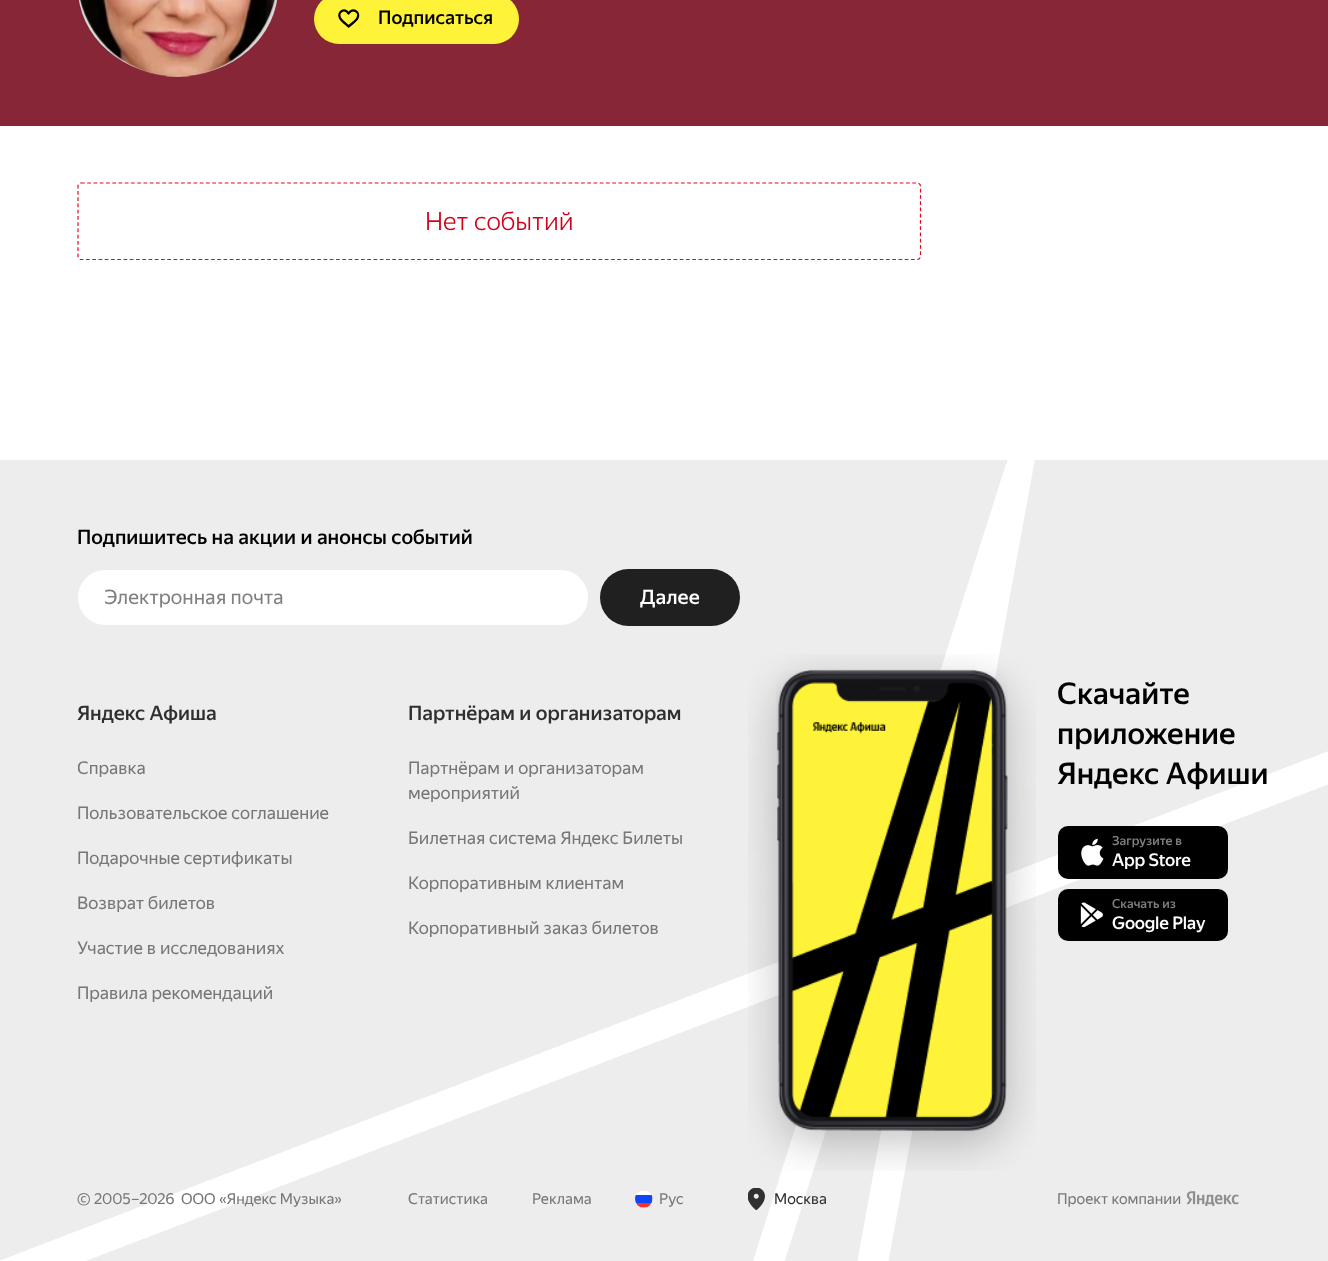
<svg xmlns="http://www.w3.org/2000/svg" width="1328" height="1261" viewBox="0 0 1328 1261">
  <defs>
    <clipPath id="clip1"><rect x="78" y="755" width="331" height="270"/></clipPath>
    <clipPath id="clip2"><rect x="726" y="460" width="309" height="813"/></clipPath>
  </defs>
  <rect width="100%" height="100%" fill="#ffffff"/>
  <rect x="0" y="0" width="1328" height="126" fill="#862636"/>
  <rect x="78" y="-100" width="200" height="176" rx="100" fill="#d8d8d8"/>
  <image x="80" y="0" width="196" height="77" href="img1.png"/>
  <rect x="314" y="-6" width="205" height="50" rx="25" fill="#fef339"/>
  <path d="M348.5 26.5C346 24 341.5 21 340 18C337 12 345 7 348.5 13.5C352.5 7 360.5 12 357.5 18C356 21 351.5 24 348.5 26.5Z" fill="none" stroke="#000000" stroke-width="2.3" stroke-linecap="square" stroke-linejoin="round"/>
  <text x="378" y="24" font-family="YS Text" font-size="18.75" font-weight="500" fill="#000000">Подписаться</text>
  <path d="M81 183H917.5C919 183 920.5 184.5 920.5 186V256C920.5 258 919 259.5 917.5 259.5H81C79.5 259.5 78 258 78 256V186C78 184.5 79.5 183 81 183Z" fill="none" stroke="#df0b22" stroke-width="1.2" stroke-dasharray="3.75 2.5"/>
  <text x="425" y="230" font-family="YS Text" font-size="25" font-weight="300" fill="#d0021b">Нет событий</text>
  <rect x="0" y="460" width="1328" height="801" fill="#ededed"/>
  <text x="77" y="544" font-family="YS Text" font-size="20" font-weight="500" fill="#000000">Подпишитесь на акции и анонсы событий</text>
  <rect x="79.5" y="571.5" width="507" height="52" rx="26" fill="#ffffff" stroke="#ffffff" stroke-width="3"/>
  <text x="104" y="604" font-family="YS Text" font-size="20" fill="#808080">Электронная почта</text>
  <rect x="600" y="569" width="140" height="57" rx="28.5" fill="#202020"/>
  <text x="640" y="604" font-family="YS Text" font-size="20" font-weight="500" fill="#ffffff">Далее</text>
  <text x="77" y="720" font-family="YS Text" font-size="20" font-weight="500" fill="#2f2f2f">Яндекс Афиша</text>
  <path d="M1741 626L-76 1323L-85 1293L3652-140L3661-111Z" fill="#ffffff" fill-rule="evenodd"/>
  <g clip-path="url(#clip1)">
    <text x="77" y="774" font-family="YS Text" font-size="17.5" fill="#777777">Справка</text>
  </g>
  <text x="77" y="819" font-family="YS Text" font-size="17.5" fill="#777777">Пользовательское соглашение</text>
  <text x="77" y="864" font-family="YS Text" font-size="17.5" fill="#777777">Подарочные сертификаты</text>
  <text x="77" y="909" font-family="YS Text" font-size="17.5" fill="#777777">Возврат билетов</text>
  <text x="77" y="954" font-family="YS Text" font-size="17.5" fill="#777777">Участие в исследованиях</text>
  <text x="77" y="999" font-family="YS Text" font-size="17.5" fill="#777777">Правила рекомендаций</text>
  <text x="408" y="720" font-family="YS Text" font-size="20" font-weight="500" fill="#2f2f2f">Партнёрам и организаторам</text>
  <text x="408" y="774" font-family="YS Text" font-size="17.5" fill="#777777">Партнёрам и организаторам</text>
  <text x="408" y="799" font-family="YS Text" font-size="17.5" fill="#777777">мероприятий</text>
  <text x="408" y="844" font-family="YS Text" font-size="17.5" fill="#777777">Билетная система Яндекс Билеты</text>
  <text x="408" y="889" font-family="YS Text" font-size="17.5" fill="#777777">Корпоративным клиентам</text>
  <text x="408" y="934" font-family="YS Text" font-size="17.5" fill="#777777">Корпоративный заказ билетов</text>
  <text x="77" y="1204" font-family="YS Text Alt" font-size="15" fill="#777777">© 2005–</text>
  <text x="139" y="1204" font-family="YS Text Alt" font-size="15" fill="#777777">2026</text>
  <text x="181" y="1204" font-family="YS Text" font-size="15" fill="#777777">ООО «Яндекс Музыка»</text>
  <text x="408" y="1204" font-family="YS Text" font-size="15" fill="#777777">Статистика</text>
  <text x="532" y="1204" font-family="YS Text" font-size="15" fill="#777777">Реклама</text>
  <image x="635" y="1191" width="18" height="17" href="img2.png"/>
  <text x="659" y="1204" font-family="YS Text" font-size="15" fill="#777777">Рус</text>
  <g clip-path="url(#clip2)">
    <path d="M828 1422L996 502L1008 459H1035L858 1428Z" fill="#ffffff" fill-rule="evenodd"/>
  </g>
  <path d="M694 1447L1006 464H1033L1023 511L723 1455Z" fill="#ffffff" fill-rule="evenodd"/>
  <image x="748" y="1188" width="17" height="22" href="img3.png"/>
  <text x="774" y="1204" font-family="YS Text" font-size="15" fill="#2f2f2f">Москва</text>
  <image x="748" y="654" width="288" height="517" href="img4.png"/>
  <text x="1057" y="704" font-family="YS Text" font-size="30" font-weight="500" fill="#000000">Скачайте</text>
  <text x="1057" y="744" font-family="YS Text" font-size="30" font-weight="500" fill="#000000">приложение</text>
  <text x="1057" y="784" font-family="YS Text" font-size="30" font-weight="500" fill="#000000">Яндекс Афиши</text>
  <rect x="1058" y="826" width="170" height="53" rx="10" fill="#000000"/>
  <image x="1081" y="838" width="23" height="28" href="img5.png"/>
  <text x="1112" y="845" font-family="YS Text" font-size="12.5" font-weight="500" fill="#808080">Загрузите в</text>
  <text x="1112" y="866" font-family="YS Text" font-size="17.5" font-weight="500" letter-spacing="-0.25" fill="#ffffff">App Store</text>
  <rect x="1058" y="889" width="170" height="52" rx="10" fill="#000000"/>
  <image x="1080" y="902" width="23" height="26" href="img6.png"/>
  <text x="1112" y="908" font-family="YS Text" font-size="12.5" font-weight="500" fill="#808080">Скачать из</text>
  <text x="1112" y="929" font-family="YS Text" font-size="17.5" font-weight="500" letter-spacing="-0.25" fill="#ffffff">Google Play</text>
  <text x="1057" y="1204" font-family="YS Text" font-size="15" fill="#777777">Проект компании</text>
  <image x="1186" y="1191" width="53" height="15" href="img7.png"/>
</svg>
